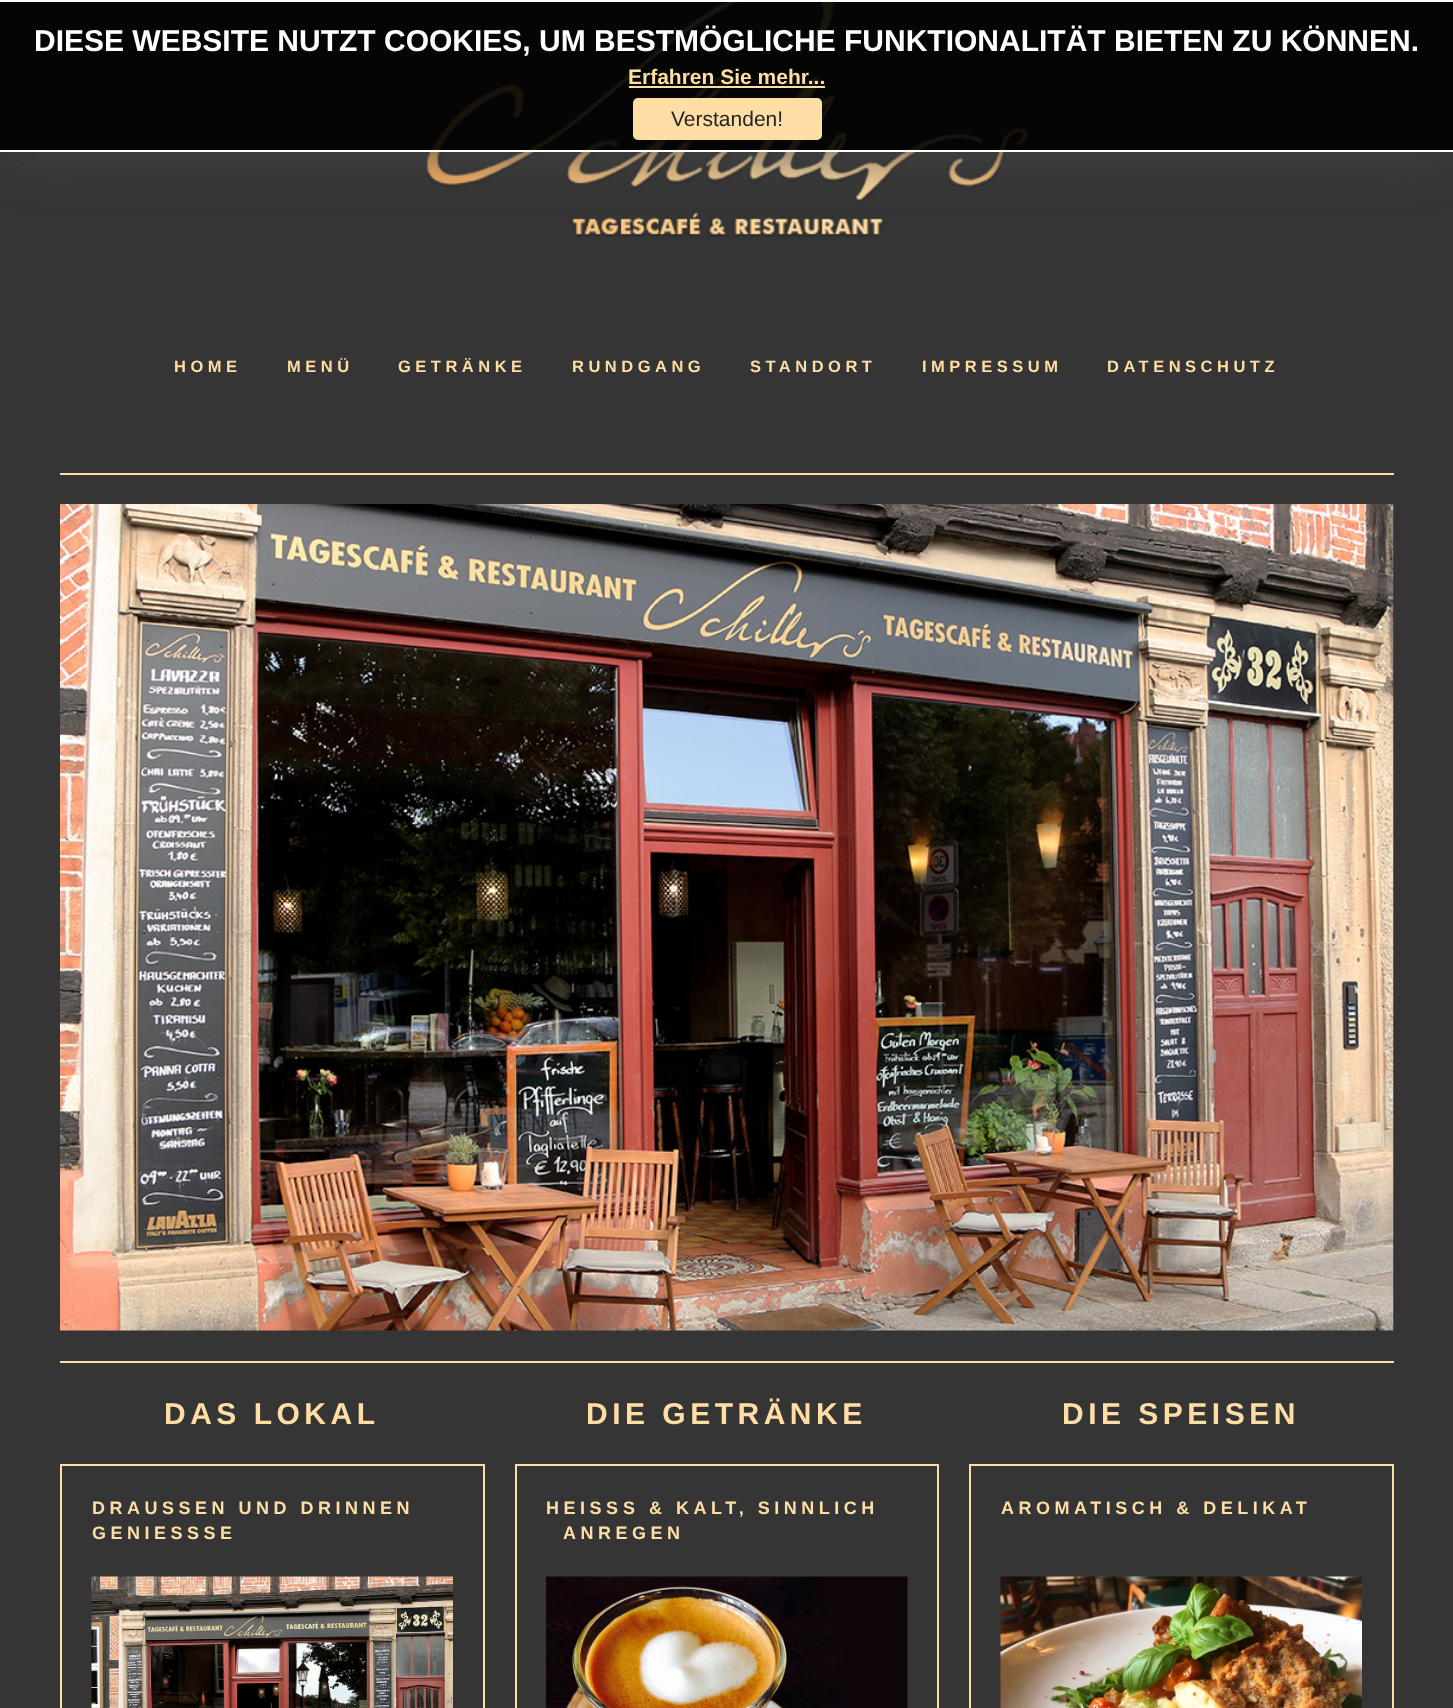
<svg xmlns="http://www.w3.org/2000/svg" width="1453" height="1708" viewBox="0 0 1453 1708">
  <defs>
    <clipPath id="clip1"><rect x="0" y="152" width="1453" height="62"/></clipPath>
    <filter id="blur1" x="-50%" y="-200%" width="200%" height="500%"><feGaussianBlur stdDeviation="30"/></filter>
  </defs>
  <rect width="100%" height="100%" fill="#353535"/>
  <image x="427" y="2" width="601" height="235" href="img1.png"/>
  <g clip-path="url(#clip1)">
    <rect x="0" y="0" width="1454" height="152" fill="#444444" filter="url(#blur1)"/>
  </g>
  <rect x="0" y="2" width="1453" height="148" fill="#000000" fill-opacity="0.9"/>
  <rect x="0" y="0" width="1453" height="2" fill="#ffffff"/>
  <rect x="0" y="150" width="1453" height="2" fill="#ffffff"/>
  <text x="34" y="51" font-family="Liberation Sans" font-size="30" font-weight="bold" fill="#ffffff">DIESE WEBSITE NUTZT COOKIES, UM BESTMÖGLICHE FUNKTIONALITÄT BIETEN ZU KÖNNEN.</text>
  <text x="628" y="84" font-family="Liberation Sans" font-size="21" font-weight="bold" fill="#ffdea6">Erfahren Sie mehr...</text>
  <rect x="629" y="86" width="196" height="2" fill="#ffdea6"/>
  <rect x="633" y="98" width="189" height="42" rx="5" fill="#ffdea6"/>
  <text x="671" y="126" font-family="Liberation Sans" font-size="21" fill="#242427">Verstanden!</text>
  <text x="174" y="372" font-family="Liberation Sans" font-size="16.5" font-weight="bold" letter-spacing="4.5" fill="#ffdea6">HOME</text>
  <text x="287" y="372" font-family="Liberation Sans" font-size="16.5" font-weight="bold" letter-spacing="4.5" fill="#ffdea6">MENÜ</text>
  <text x="398" y="372" font-family="Liberation Sans" font-size="16.5" font-weight="bold" letter-spacing="4.5" fill="#ffdea6">GETRÄNKE</text>
  <text x="572" y="372" font-family="Liberation Sans" font-size="16.5" font-weight="bold" letter-spacing="4.5" fill="#ffdea6">RUNDGANG</text>
  <text x="750" y="372" font-family="Liberation Sans" font-size="16.5" font-weight="bold" letter-spacing="4.5" fill="#ffdea6">STANDORT</text>
  <text x="922" y="372" font-family="Liberation Sans" font-size="16.5" font-weight="bold" letter-spacing="4.5" fill="#ffdea6">IMPRESSUM</text>
  <text x="1107" y="372" font-family="Liberation Sans" font-size="16.5" font-weight="bold" letter-spacing="4.5" fill="#ffdea6">DATENSCHUTZ</text>
  <rect x="60" y="473" width="1334" height="2" fill="#ffdea6"/>
  <image x="60" y="504" width="1334" height="827" href="img2.png"/>
  <rect x="60" y="1361" width="1334" height="2" fill="#ffdea6"/>
  <text x="164" y="1424" font-family="Liberation Sans" font-size="30" font-weight="bold" letter-spacing="4.5" fill="#ffdea6">DAS LOKAL</text>
  <rect x="61" y="1465" width="423" height="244" fill="none" stroke="#ffdea6" stroke-width="2"/>
  <text x="92" y="1514" font-family="Liberation Sans" font-size="18" font-weight="bold" letter-spacing="4.5" fill="#ffdea6">DRAUSSEN UND DRINNEN</text>
  <text x="92" y="1539" font-family="Liberation Sans" font-size="18" font-weight="bold" letter-spacing="4.5" fill="#ffdea6">GENIESSSE</text>
  <image x="91" y="1576" width="362" height="132" href="img3.png"/>
  <text x="586" y="1424" font-family="Liberation Sans" font-size="30" font-weight="bold" letter-spacing="4.5" fill="#ffdea6">DIE GETRÄNKE</text>
  <rect x="516" y="1465" width="422" height="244" fill="none" stroke="#ffdea6" stroke-width="2"/>
  <text x="546" y="1514" font-family="Liberation Sans" font-size="18" font-weight="bold" letter-spacing="4.5" fill="#ffdea6">HEISS</text>
  <text x="623" y="1514" font-family="Liberation Sans" font-size="18" font-weight="bold" letter-spacing="4.5" fill="#ffdea6">S &amp; KALT, SINNLICH</text>
  <text x="563" y="1539" font-family="Liberation Sans" font-size="18" font-weight="bold" letter-spacing="4.5" fill="#ffdea6">ANREGEN</text>
  <image x="546" y="1576" width="362" height="132" href="img4.png"/>
  <text x="1062" y="1424" font-family="Liberation Sans" font-size="30" font-weight="bold" letter-spacing="4.5" fill="#ffdea6">DIE SPEISEN</text>
  <rect x="970" y="1465" width="423" height="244" fill="none" stroke="#ffdea6" stroke-width="2"/>
  <text x="1001" y="1514" font-family="Liberation Sans" font-size="18" font-weight="bold" letter-spacing="4.5" fill="#ffdea6">AROMATISCH &amp; DELIKAT</text>
  <image x="1000" y="1576" width="362" height="132" href="img5.png"/>
</svg>
